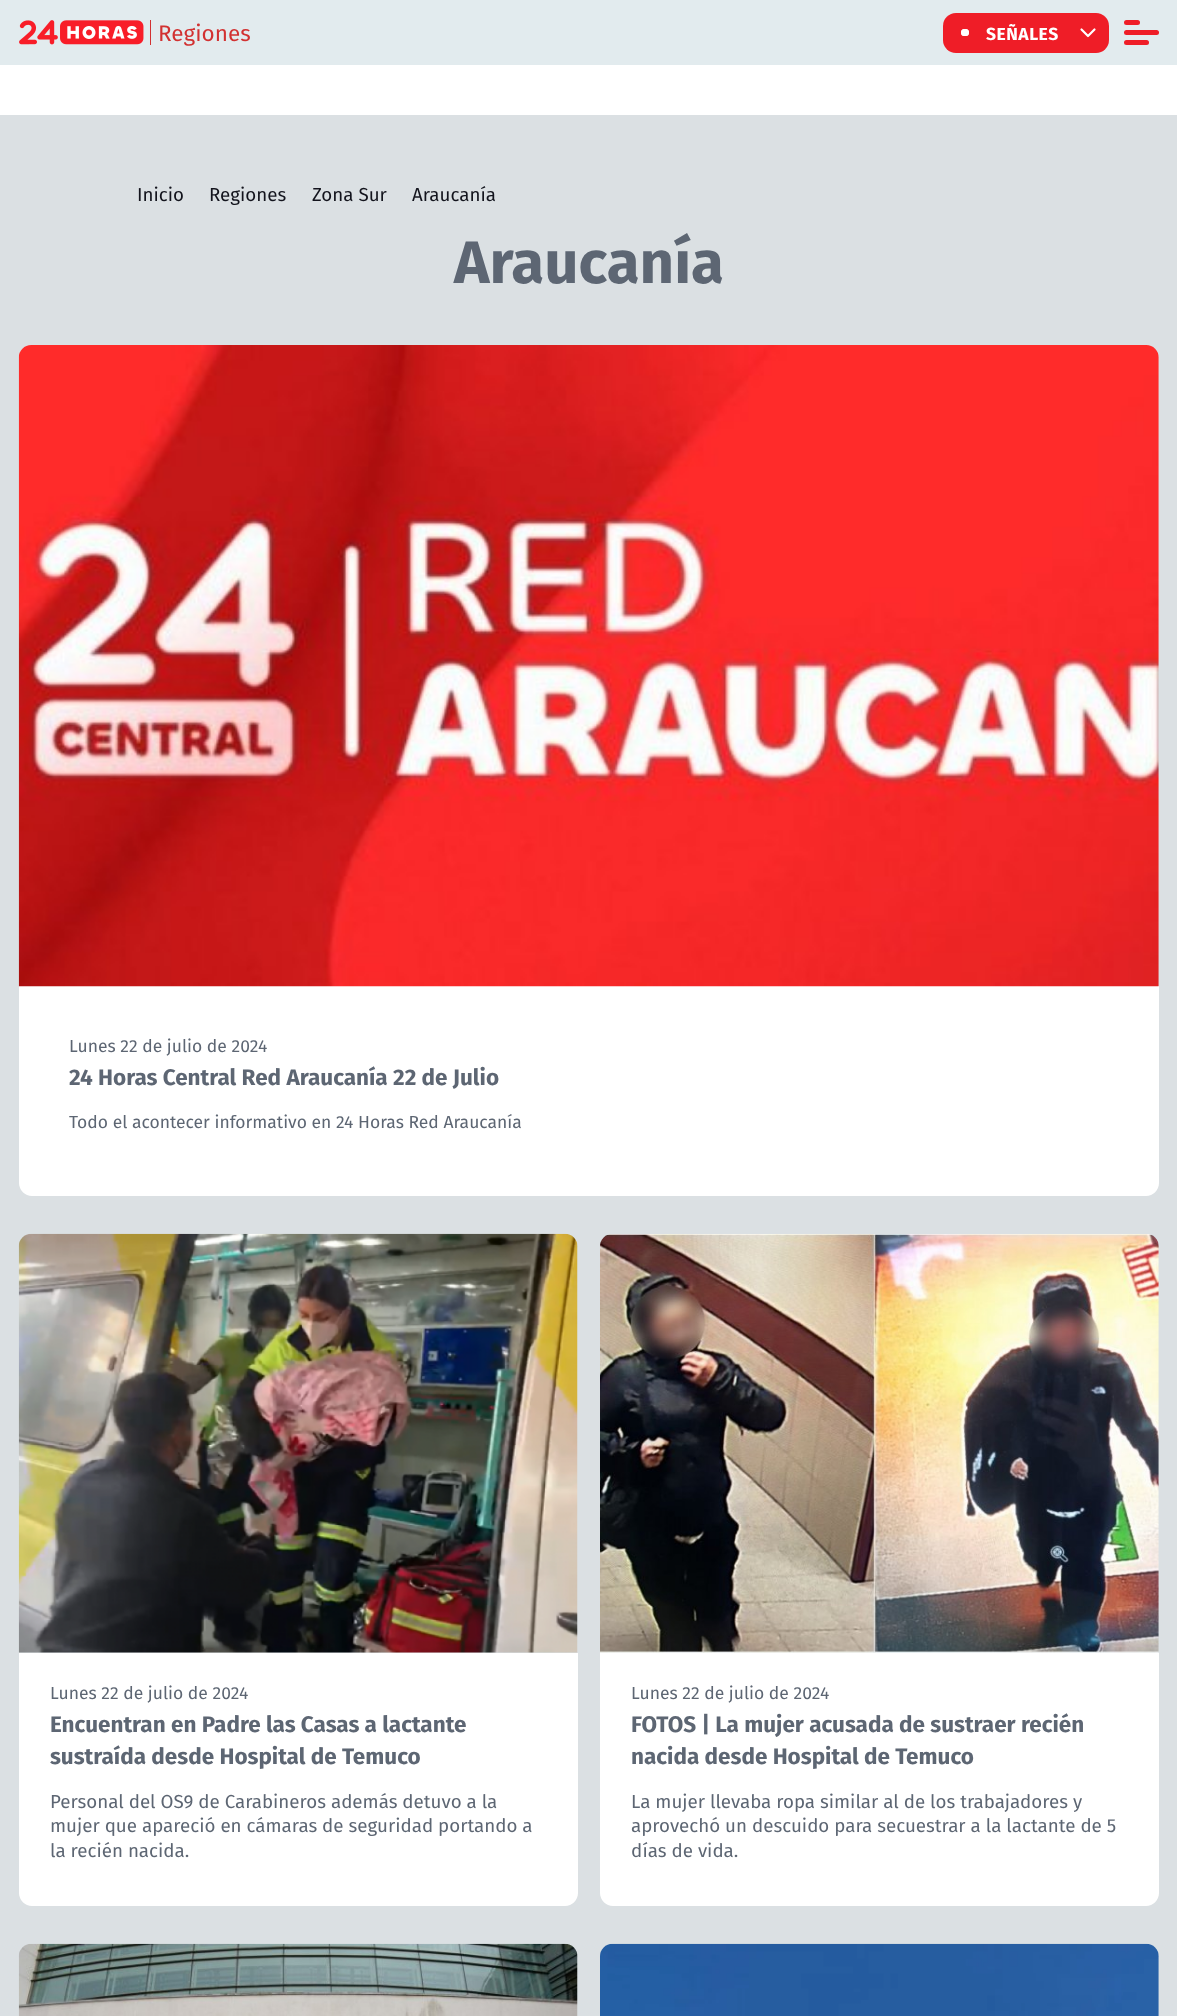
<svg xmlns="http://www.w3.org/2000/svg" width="1177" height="2016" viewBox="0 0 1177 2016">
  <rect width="100%" height="100%" fill="#ffffff"/>
  <rect x="0" y="0" width="1177" height="65" fill="#e2ebee"/>
  <image x="19" y="20" width="125" height="25" href="img1.png"/>
  <rect x="150" y="20" width="1" height="25" fill="#d23131"/>
  <text x="158" y="41" font-family="Fira Sans" font-size="22.5" fill="#d23131">Regiones</text>
  <rect x="943" y="13" width="166" height="40" rx="13" fill="#ef1d27"/>
  <rect x="962" y="30" width="6" height="5" rx="2.5" fill="none" stroke="#ffffff" stroke-width="2"/>
  <rect x="962" y="30" width="6" height="5" rx="2.5" fill="#ffffff" stroke="#ffffff" stroke-width="2"/>
  <text x="986" y="40" font-family="Fira Sans" font-size="17.5" font-weight="bold" letter-spacing="0.5" fill="#ffffff">SEÑALES</text>
  <path d="M1081.5 29.5L1088 36L1094.5 29.5" fill="none" stroke="#ffffff" stroke-width="2.2" stroke-linecap="round" stroke-linejoin="round"/>
  <rect x="1124" y="30" width="35" height="5" rx="2.5" fill="#ef1d27"/>
  <rect x="1124" y="20" width="16" height="5" rx="2.5" fill="#ef1d27"/>
  <rect x="1124" y="40" width="25" height="5" rx="2.5" fill="#ef1d27"/>
  <rect x="0" y="115" width="1177" height="1901" fill="#dbe0e3"/>
  <text x="137" y="201" font-family="Fira Sans" font-size="18.75" fill="#13141d">Inicio</text>
  <text x="209" y="201" font-family="Fira Sans" font-size="18.75" fill="#13141d">Regiones</text>
  <text x="312" y="201" font-family="Fira Sans" font-size="18.75" fill="#13141d">Zona Sur</text>
  <text x="412" y="201" font-family="Fira Sans" font-size="18.75" fill="#13141d">Araucanía</text>
  <text x="454" y="283" font-family="Fira Sans" font-size="60" font-weight="bold" fill="#5d6673">Araucanía</text>
  <path d="M19 986H1159V1183C1159 1190 1153 1196 1146 1196H32C25 1196 19 1190 19 1183Z" fill="#ffffff"/>
  <image x="18" y="345" width="1141" height="642" href="img2.png"/>
  <text x="69" y="1052" font-family="Fira Sans" font-size="17.5" fill="#5d6673">Lunes 22 de julio de 2024</text>
  <text x="69" y="1085" font-family="Fira Sans" font-size="22.5" font-weight="bold" fill="#5d6673">24 Horas Central Red Araucanía 22 de Julio</text>
  <text x="69" y="1128" font-family="Fira Sans" font-size="17.5" fill="#5d6673">Todo el acontecer informativo en 24 Horas Red Araucanía</text>
  <image x="18" y="1233" width="560" height="420" href="img3.png"/>
  <path d="M19 1653H578V1893C578 1900 572 1906 565 1906H32C25 1906 19 1900 19 1893Z" fill="#ffffff"/>
  <text x="50" y="1699" font-family="Fira Sans" font-size="17.5" fill="#5d6673">Lunes 22 de julio de 2024</text>
  <text x="50" y="1732" font-family="Fira Sans" font-size="22.5" font-weight="bold" fill="#5d6673">Encuentran en Padre las Casas a lactante</text>
  <text x="50" y="1764" font-family="Fira Sans" font-size="22.5" font-weight="bold" fill="#5d6673">sustraída desde Hospital de Temuco</text>
  <text x="50" y="1808" font-family="Fira Sans" font-size="18.75" fill="#5d6673">Personal del OS9 de Carabineros además detuvo a la</text>
  <text x="50" y="1832" font-family="Fira Sans" font-size="18.75" fill="#5d6673">mujer que apareció en cámaras de seguridad portando a</text>
  <text x="50" y="1857" font-family="Fira Sans" font-size="18.75" fill="#5d6673">la recién nacida.</text>
  <image x="600" y="1234" width="559" height="419" href="img4.png"/>
  <path d="M600 1653H1159V1893C1159 1900 1153 1906 1146 1906H613C606 1906 600 1900 600 1893Z" fill="#ffffff"/>
  <text x="631" y="1699" font-family="Fira Sans" font-size="17.5" fill="#5d6673">Lunes 22 de julio de 2024</text>
  <text x="631" y="1732" font-family="Fira Sans" font-size="22.5" font-weight="bold" fill="#5d6673">FOTOS | La mujer acusada de sustraer recién</text>
  <text x="631" y="1764" font-family="Fira Sans" font-size="22.5" font-weight="bold" fill="#5d6673">nacida desde Hospital de Temuco</text>
  <text x="631" y="1808" font-family="Fira Sans" font-size="18.75" fill="#5d6673">La mujer llevaba ropa similar al de los trabajadores y</text>
  <text x="631" y="1832" font-family="Fira Sans" font-size="18.75" fill="#5d6673">aprovechó un descuido para secuestrar a la lactante de 5</text>
  <text x="631" y="1857" font-family="Fira Sans" font-size="18.75" fill="#5d6673">días de vida.</text>
  <image x="18" y="1943" width="560" height="73" href="img5.png"/>
  <image x="600" y="1943" width="559" height="73" href="img6.png"/>
</svg>
